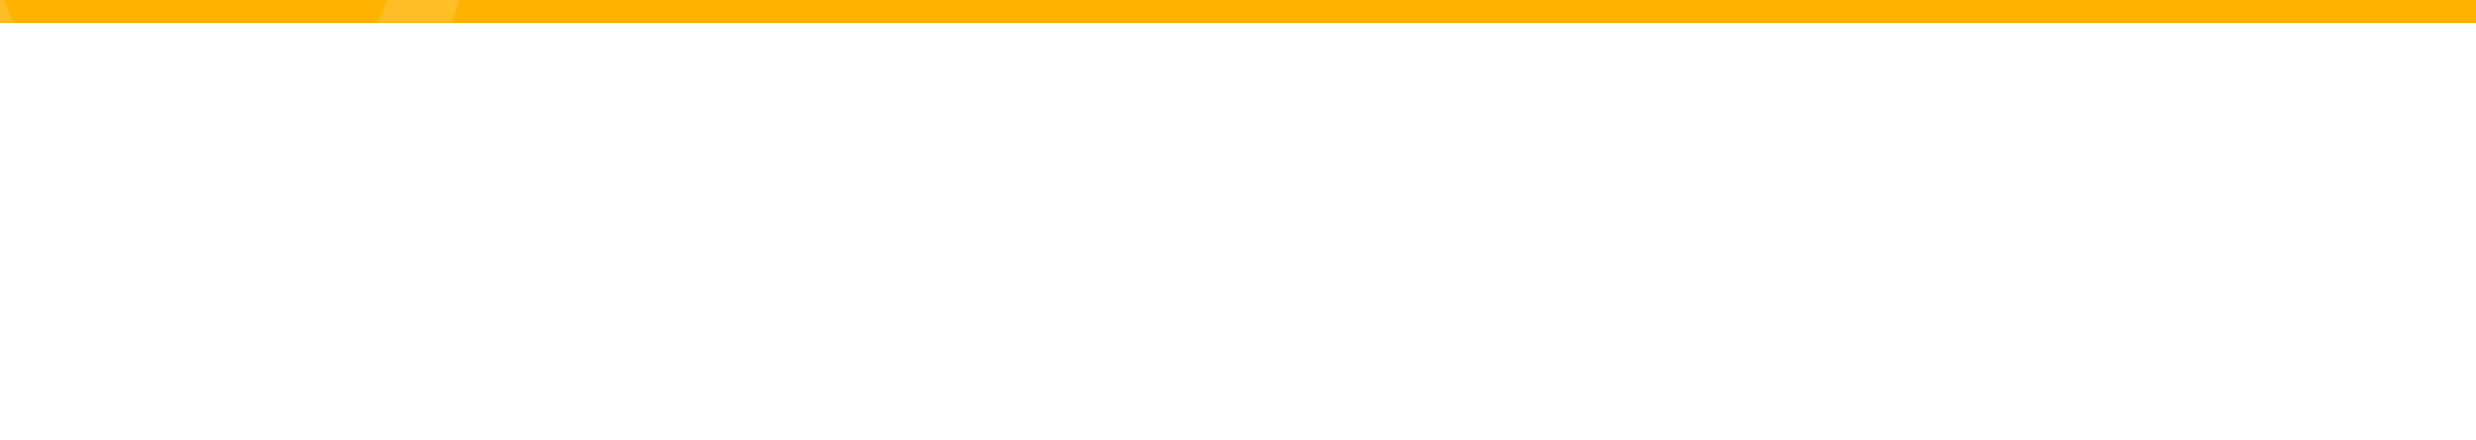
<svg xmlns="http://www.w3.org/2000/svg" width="2476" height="440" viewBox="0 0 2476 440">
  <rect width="100%" height="100%" fill="#ffffff"/>
  <rect x="0" y="0" width="2476" height="23" fill="#ffb300"/>
  <image x="0" y="0" width="459" height="23" href="img1.png"/>
</svg>
